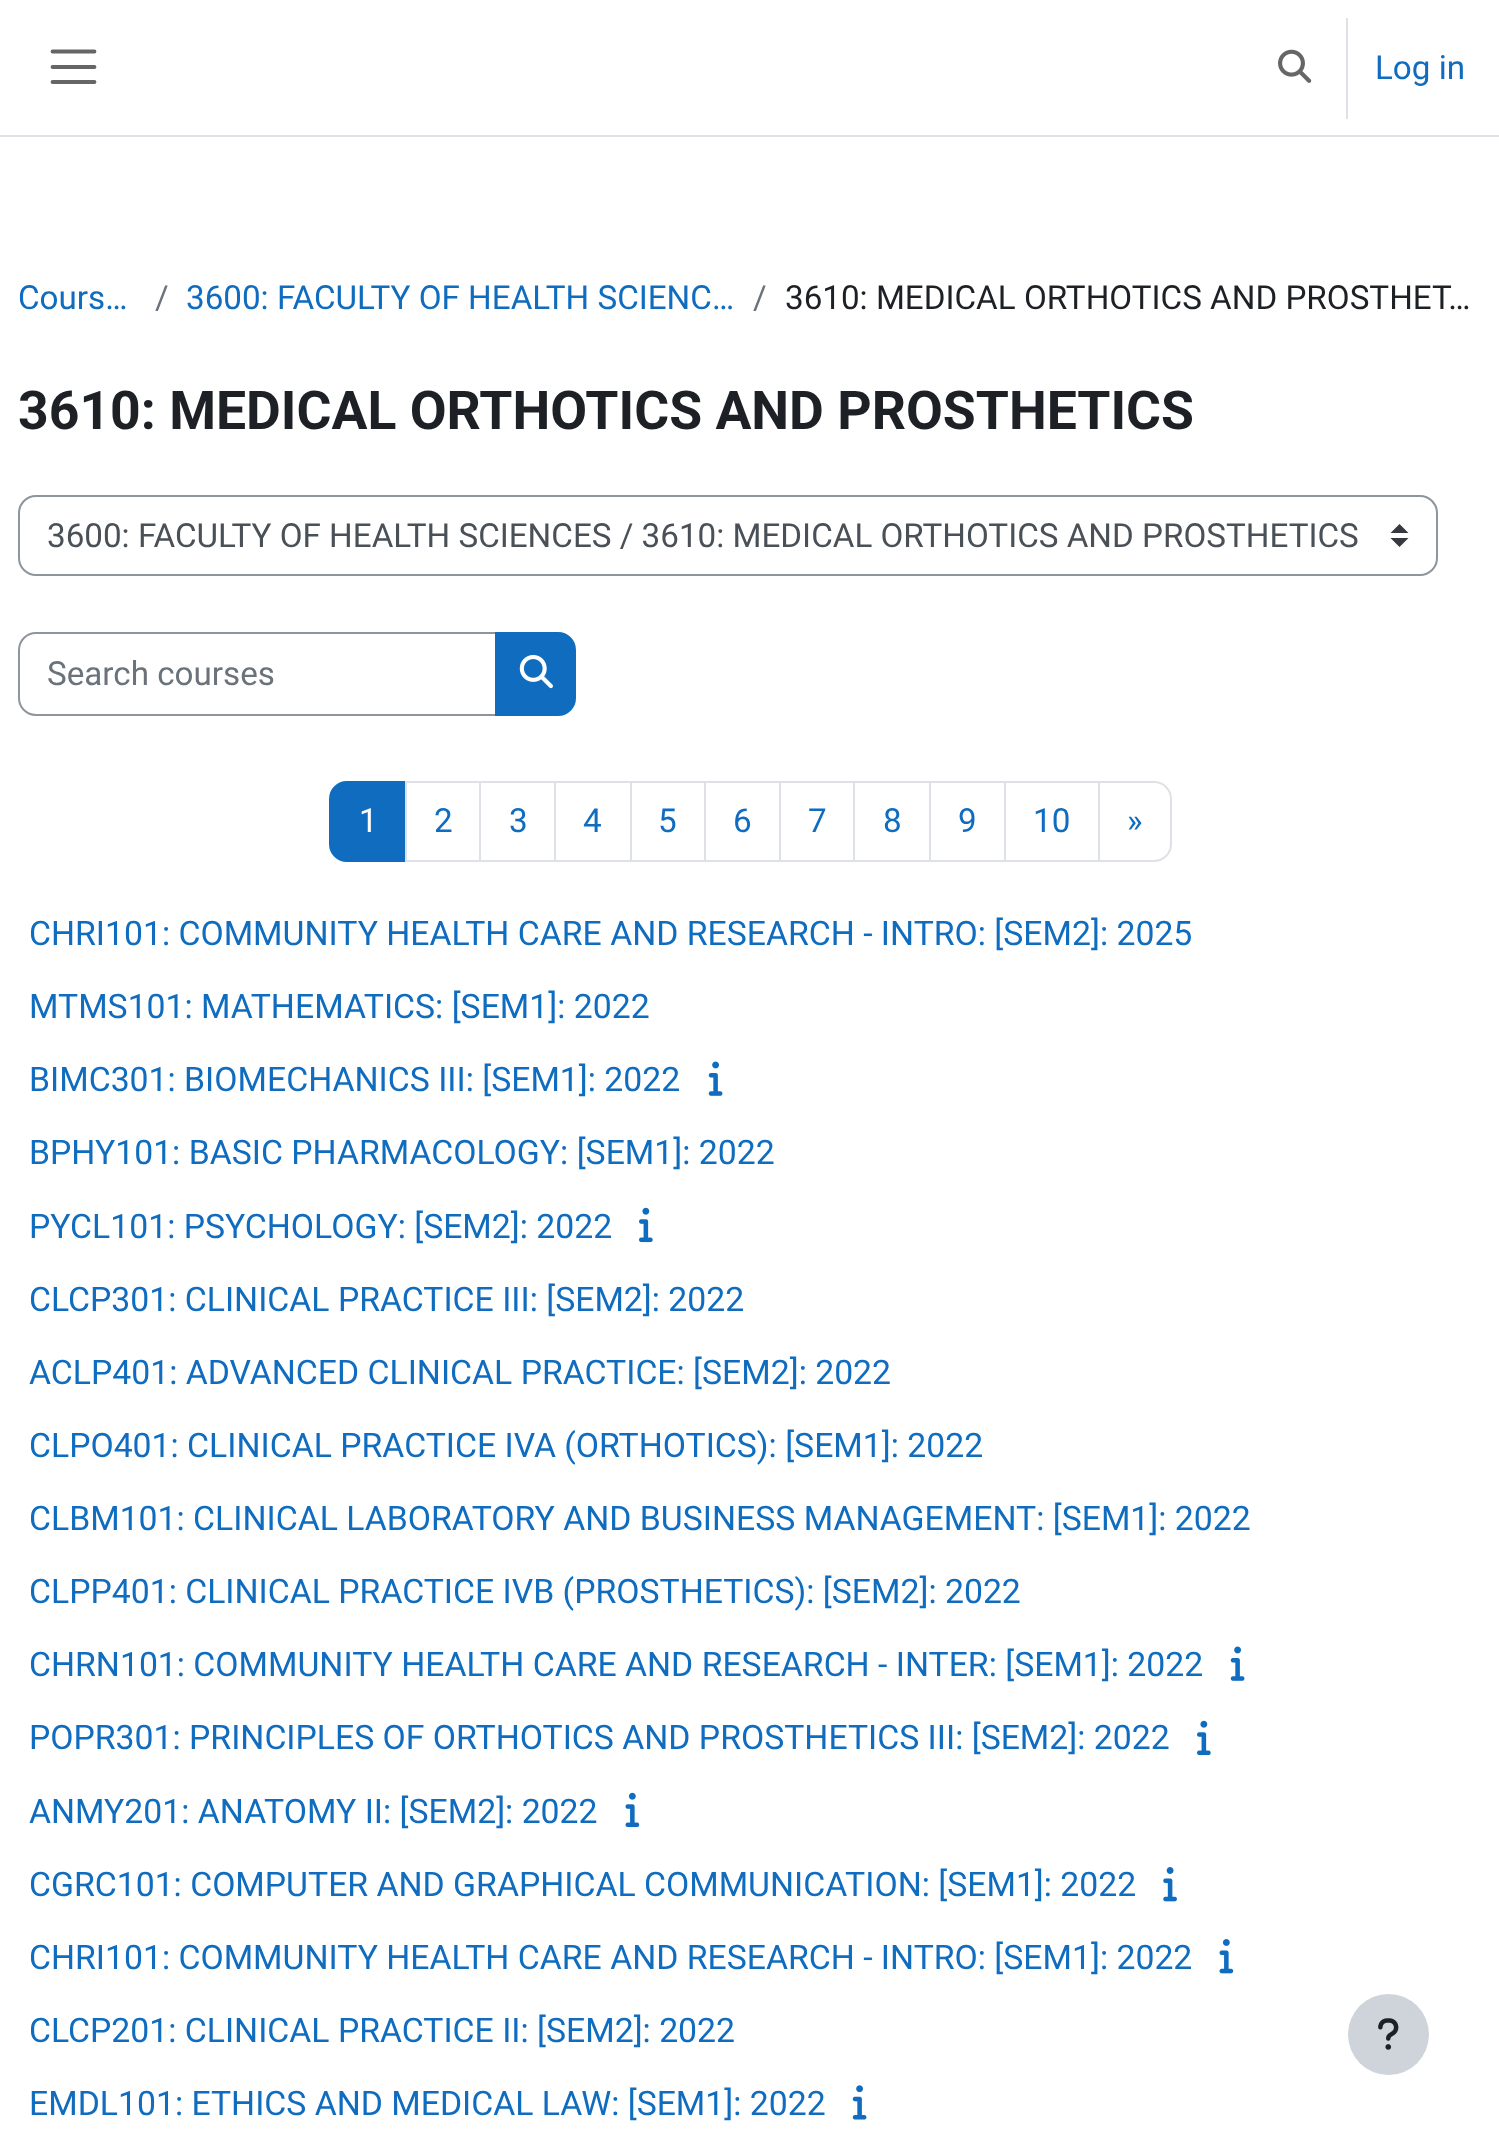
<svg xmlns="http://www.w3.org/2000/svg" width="1499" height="2145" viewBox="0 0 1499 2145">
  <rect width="100%" height="100%" fill="#ffffff"/>
  <rect x="0" y="135" width="1499" height="2" fill="#dee2e6"/>
  <path d="M52.5 51.5H94.5M52.5 67H94.5M52.5 82H94.5" fill="none" stroke="#666666" stroke-width="3.8" stroke-linecap="round"/>
  <image x="1278" y="49" width="34" height="34" href="img1.png"/>
  <rect x="1346" y="18" width="2" height="101" fill="#dee2e6"/>
  <text x="1375" y="79" font-family="Roboto" font-size="33.2" fill="#0f6cbf">Log in</text>
  <text x="18" y="309" font-family="Roboto" font-size="33.2" fill="#0f6cbf">Cours…</text>
  <text x="155" y="309" font-family="Roboto" font-size="33.2" fill="#6a737b">/</text>
  <text x="186" y="309" font-family="Roboto" font-size="33.2" fill="#0f6cbf">3600: FACULTY OF HEALTH SCIENC…</text>
  <text x="753" y="309" font-family="Roboto" font-size="33.2" fill="#6a737b">/</text>
  <text x="785" y="309" font-family="Roboto" font-size="33.2" fill="#1d2125">3610: MEDICAL ORTHOTICS AND PROSTHET…</text>
  <text x="18" y="429" font-family="Roboto" font-size="53.5" font-weight="bold" fill="#1d2125">3610: MEDICAL ORTHOTICS AND PROSTHETICS</text>
  <path d="M1399.5 524L1390.5 533H1408.5ZM1399.5 547L1390.5 538H1408.5Z" fill="#343a40"/>
  <rect x="19" y="496" width="1418" height="79" rx="17" fill="none" stroke="#8f959e" stroke-width="2"/>
  <text x="47" y="547" font-family="Roboto" font-size="33.2" fill="#495057">3600: FACULTY OF HEALTH SCIENCES / 3610: MEDICAL ORTHOTICS AND PROSTHETICS</text>
  <path d="M36 633H496V715H36C26.5 715 19 707.5 19 698V650C19 640.5 26.5 633 36 633Z" fill="none" stroke="#8f959e" stroke-width="2"/>
  <text x="47" y="685" font-family="Roboto" font-size="33.2" fill="#6a737b">Search courses</text>
  <path d="M496 633H558C567.5 633 575 640.5 575 650V698C575 707.5 567.5 715 558 715H496Z" fill="#0f6cbf" stroke="#0f6cbf" stroke-width="2"/>
  <image x="519" y="654" width="34" height="35" href="img2.png"/>
  <path d="M347 782H406V861H347C337.5 861 330 853.5 330 844V799C330 789.5 337.5 782 347 782Z" fill="#0f6cbf" stroke="#0f6cbf" stroke-width="2"/>
  <text x="359" y="832" font-family="Roboto" font-size="33.2" fill="#ffffff">1</text>
  <rect x="406" y="782" width="75" height="79" fill="none" stroke="#dee2e6" stroke-width="2"/>
  <text x="434" y="832" font-family="Roboto" font-size="33.2" fill="#0f6cbf">2</text>
  <rect x="481" y="783" width="1" height="77" fill="#ffffff"/>
  <rect x="480" y="782" width="75" height="79" fill="none" stroke="#dee2e6" stroke-width="2"/>
  <text x="509" y="832" font-family="Roboto" font-size="33.2" fill="#0f6cbf">3</text>
  <rect x="555" y="782" width="76" height="79" fill="none" stroke="#dee2e6" stroke-width="2"/>
  <text x="583" y="832" font-family="Roboto" font-size="33.2" fill="#0f6cbf">4</text>
  <rect x="631" y="782" width="75" height="79" fill="none" stroke="#dee2e6" stroke-width="2"/>
  <text x="658" y="832" font-family="Roboto" font-size="33.2" fill="#0f6cbf">5</text>
  <rect x="706" y="783" width="1" height="77" fill="#ffffff"/>
  <rect x="705" y="782" width="75" height="79" fill="none" stroke="#dee2e6" stroke-width="2"/>
  <text x="733" y="832" font-family="Roboto" font-size="33.2" fill="#0f6cbf">6</text>
  <rect x="780" y="782" width="74" height="79" fill="none" stroke="#dee2e6" stroke-width="2"/>
  <text x="808" y="832" font-family="Roboto" font-size="33.2" fill="#0f6cbf">7</text>
  <rect x="854" y="782" width="77" height="79" fill="none" stroke="#dee2e6" stroke-width="2"/>
  <text x="883" y="832" font-family="Roboto" font-size="33.2" fill="#0f6cbf">8</text>
  <rect x="931" y="783" width="1" height="77" fill="#ffffff"/>
  <rect x="930" y="782" width="75" height="79" fill="none" stroke="#dee2e6" stroke-width="2"/>
  <text x="958" y="832" font-family="Roboto" font-size="33.2" fill="#0f6cbf">9</text>
  <rect x="1005" y="782" width="94" height="79" fill="none" stroke="#dee2e6" stroke-width="2"/>
  <text x="1033" y="832" font-family="Roboto" font-size="33.2" fill="#0f6cbf">10</text>
  <path d="M1099 782H1154C1163.5 782 1171 789.5 1171 799V844C1171 853.5 1163.5 861 1154 861H1099Z" fill="#ffffff" stroke="#dee2e6" stroke-width="2"/>
  <text x="1127" y="832" font-family="Roboto" font-size="33.2" fill="#0f6cbf">»</text>
  <text x="29" y="945" font-family="Roboto" font-size="33.75" fill="#0f6cbf">CHRI101: COMMUNITY HEALTH CARE AND RESEARCH - INTRO: [SEM2]: 2025</text>
  <text x="29" y="1018" font-family="Roboto" font-size="33.75" fill="#0f6cbf">MTMS101: MATHEMATICS: [SEM1]: 2022</text>
  <text x="29" y="1091" font-family="Roboto" font-size="33.75" fill="#0f6cbf">BIMC301: BIOMECHANICS III: [SEM1]: 2022</text>
  <image x="708" y="1061" width="15" height="35" href="img3.png"/>
  <text x="29" y="1164" font-family="Roboto" font-size="33.75" fill="#0f6cbf">BPHY101: BASIC PHARMACOLOGY: [SEM1]: 2022</text>
  <text x="29" y="1238" font-family="Roboto" font-size="33.75" fill="#0f6cbf">PYCL101: PSYCHOLOGY: [SEM2]: 2022</text>
  <image x="639" y="1207" width="14" height="36" href="img4.png"/>
  <text x="29" y="1311" font-family="Roboto" font-size="33.75" fill="#0f6cbf">CLCP301: CLINICAL PRACTICE III: [SEM2]: 2022</text>
  <text x="29" y="1384" font-family="Roboto" font-size="33.75" fill="#0f6cbf">ACLP401: ADVANCED CLINICAL PRACTICE: [SEM2]: 2022</text>
  <text x="29" y="1457" font-family="Roboto" font-size="33.75" fill="#0f6cbf">CLPO401: CLINICAL PRACTICE IVA (ORTHOTICS): [SEM1]: 2022</text>
  <text x="29" y="1530" font-family="Roboto" font-size="33.75" fill="#0f6cbf">CLBM101: CLINICAL LABORATORY AND BUSINESS MANAGEMENT: [SEM1]: 2022</text>
  <text x="29" y="1603" font-family="Roboto" font-size="33.75" fill="#0f6cbf">CLPP401: CLINICAL PRACTICE IVB (PROSTHETICS): [SEM2]: 2022</text>
  <text x="29" y="1676" font-family="Roboto" font-size="33.75" fill="#0f6cbf">CHRN101: COMMUNITY HEALTH CARE AND RESEARCH - INTER: [SEM1]: 2022</text>
  <image x="1230" y="1646" width="15" height="35" href="img3.png"/>
  <text x="29" y="1749" font-family="Roboto" font-size="33.75" fill="#0f6cbf">POPR301: PRINCIPLES OF ORTHOTICS AND PROSTHETICS III: [SEM2]: 2022</text>
  <image x="1197" y="1720" width="14" height="36" href="img4.png"/>
  <text x="29" y="1823" font-family="Roboto" font-size="33.75" fill="#0f6cbf">ANMY201: ANATOMY II: [SEM2]: 2022</text>
  <image x="625" y="1792" width="15" height="36" href="img5.png"/>
  <text x="29" y="1896" font-family="Roboto" font-size="33.75" fill="#0f6cbf">CGRC101: COMPUTER AND GRAPHICAL COMMUNICATION: [SEM1]: 2022</text>
  <image x="1163" y="1867" width="14" height="35" href="img6.png"/>
  <text x="29" y="1969" font-family="Roboto" font-size="33.75" fill="#0f6cbf">CHRI101: COMMUNITY HEALTH CARE AND RESEARCH - INTRO: [SEM1]: 2022</text>
  <image x="1219" y="1939" width="15" height="35" href="img7.png"/>
  <text x="29" y="2042" font-family="Roboto" font-size="33.75" fill="#0f6cbf">CLCP201: CLINICAL PRACTICE II: [SEM2]: 2022</text>
  <text x="29" y="2115" font-family="Roboto" font-size="33.75" fill="#0f6cbf">EMDL101: ETHICS AND MEDICAL LAW: [SEM1]: 2022</text>
  <image x="852" y="2085" width="15" height="35" href="img8.png"/>
  <circle cx="1388.5" cy="2034.5" r="40.5" fill="#ced4da"/>
  <image x="1378" y="2018" width="21" height="32" href="img9.png"/>
</svg>
